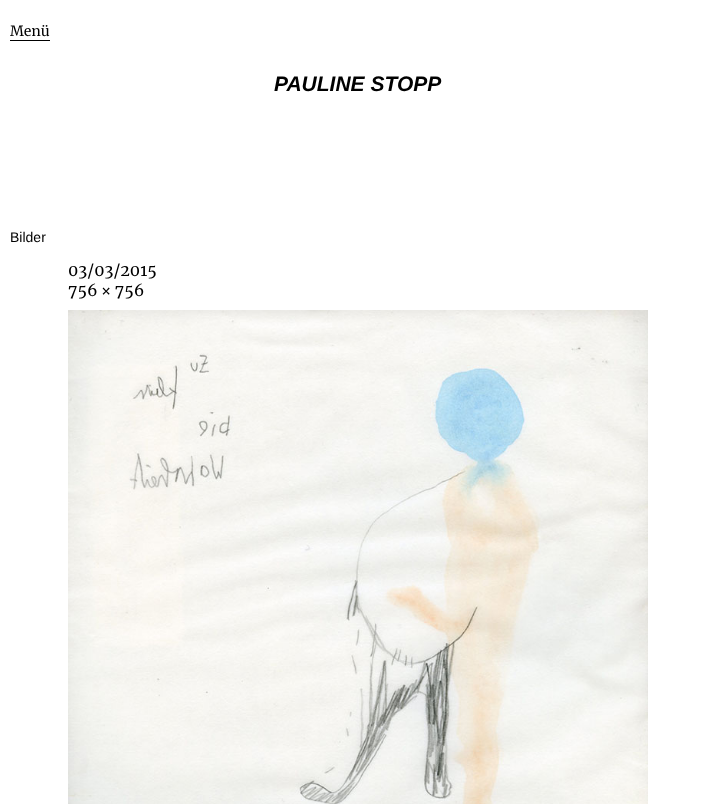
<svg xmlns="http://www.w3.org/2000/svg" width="716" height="804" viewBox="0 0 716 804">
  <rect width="100%" height="100%" fill="#ffffff"/>
  <rect x="10" y="40" width="40" height="1" fill="#000000"/>
  <text x="10" y="36" font-family="Merriweather" font-size="14" fill="#000000">Menü</text>
  <text x="274" y="91" font-family="Liberation Sans" font-size="21" font-weight="bold" font-style="italic" fill="#000000">PAULINE STOPP</text>
  <text x="10" y="242" font-family="Liberation Sans" font-size="14" fill="#000000">Bilder</text>
  <text x="68" y="276" font-family="Merriweather" font-size="16" fill="#000000">03/03/2015</text>
  <text x="68" y="296" font-family="Merriweather" font-size="16" fill="#000000">756 × 756</text>
  <image x="68" y="310" width="580" height="494" href="img1.png"/>
</svg>
